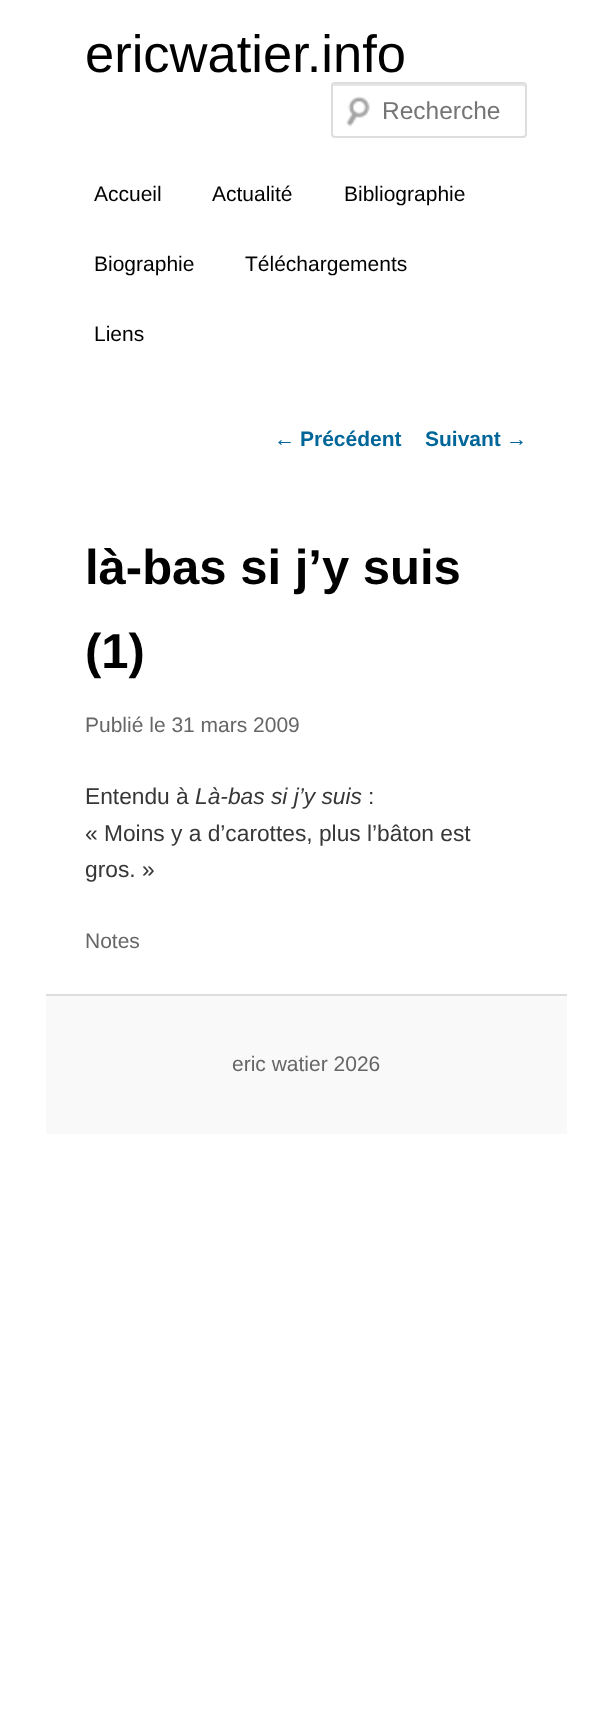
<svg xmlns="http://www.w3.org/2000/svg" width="611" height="1736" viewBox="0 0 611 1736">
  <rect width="100%" height="100%" fill="#ffffff"/>
  <text x="85" y="72" font-family="Liberation Sans" font-size="52.5" fill="#000000">ericwatier.info</text>
  <image x="346" y="96" width="24" height="31" href="img1.png"/>
  <path d="M334 86H523L525 87V88V86C525 85 524 84 523 84H335C334 84 333 85 333 86Z" fill="#e6e6e6"/>
  <rect x="332" y="83" width="194" height="54" rx="3" fill="none" stroke="#dddddd" stroke-width="2"/>
  <text x="382" y="119" font-family="Liberation Sans" font-size="24.5" fill="#757575">Recherche</text>
  <text x="94" y="201" font-family="Liberation Sans" font-size="21" fill="#000000">Accueil</text>
  <text x="212" y="201" font-family="Liberation Sans" font-size="21" fill="#000000">Actualité</text>
  <text x="344" y="201" font-family="Liberation Sans" font-size="21" fill="#000000">Bibliographie</text>
  <text x="94" y="271" font-family="Liberation Sans" font-size="21" fill="#000000">Biographie</text>
  <text x="245" y="271" font-family="Liberation Sans" font-size="21" fill="#000000">Téléchargements</text>
  <text x="94" y="341" font-family="Liberation Sans" font-size="21" fill="#000000">Liens</text>
  <text x="274" y="446" font-family="Liberation Sans" font-size="21" fill="#006699">←</text>
  <text x="300" y="446" font-family="Liberation Sans" font-size="21" font-weight="bold" fill="#006699">Précédent</text>
  <text x="425" y="446" font-family="Liberation Sans" font-size="21" font-weight="bold" fill="#006699">Suivant</text>
  <text x="506" y="446" font-family="Liberation Sans" font-size="21" fill="#006699">→</text>
  <text x="85" y="584" font-family="Liberation Sans" font-size="49" font-weight="bold" fill="#000000">là-bas si j’y suis</text>
  <text x="85" y="668" font-family="Liberation Sans" font-size="49" font-weight="bold" fill="#000000">(1)</text>
  <text x="85" y="732" font-family="Liberation Sans" font-size="21" fill="#666666">Publié le 31 mars 2009</text>
  <text x="85" y="804" font-family="Liberation Sans" font-size="22.75" fill="#373737">Entendu à</text>
  <text x="195" y="804" font-family="Liberation Sans" font-size="22.75" font-style="italic" fill="#373737">Là-bas si j’y suis</text>
  <text x="368" y="804" font-family="Liberation Sans" font-size="22.75" fill="#373737">:</text>
  <text x="85" y="841" font-family="Liberation Sans" font-size="22.75" fill="#373737">« Moins y a d’carottes, plus l’bâton est</text>
  <text x="85" y="877" font-family="Liberation Sans" font-size="22.75" fill="#373737">gros. »</text>
  <text x="85" y="948" font-family="Liberation Sans" font-size="21" fill="#666666">Notes</text>
  <rect x="46" y="996" width="521" height="138" fill="#f9f9f9"/>
  <rect x="46" y="994" width="521" height="2" fill="#dddddd"/>
  <text x="232" y="1071" font-family="Liberation Sans" font-size="21" fill="#666666">eric watier 2026</text>
</svg>
